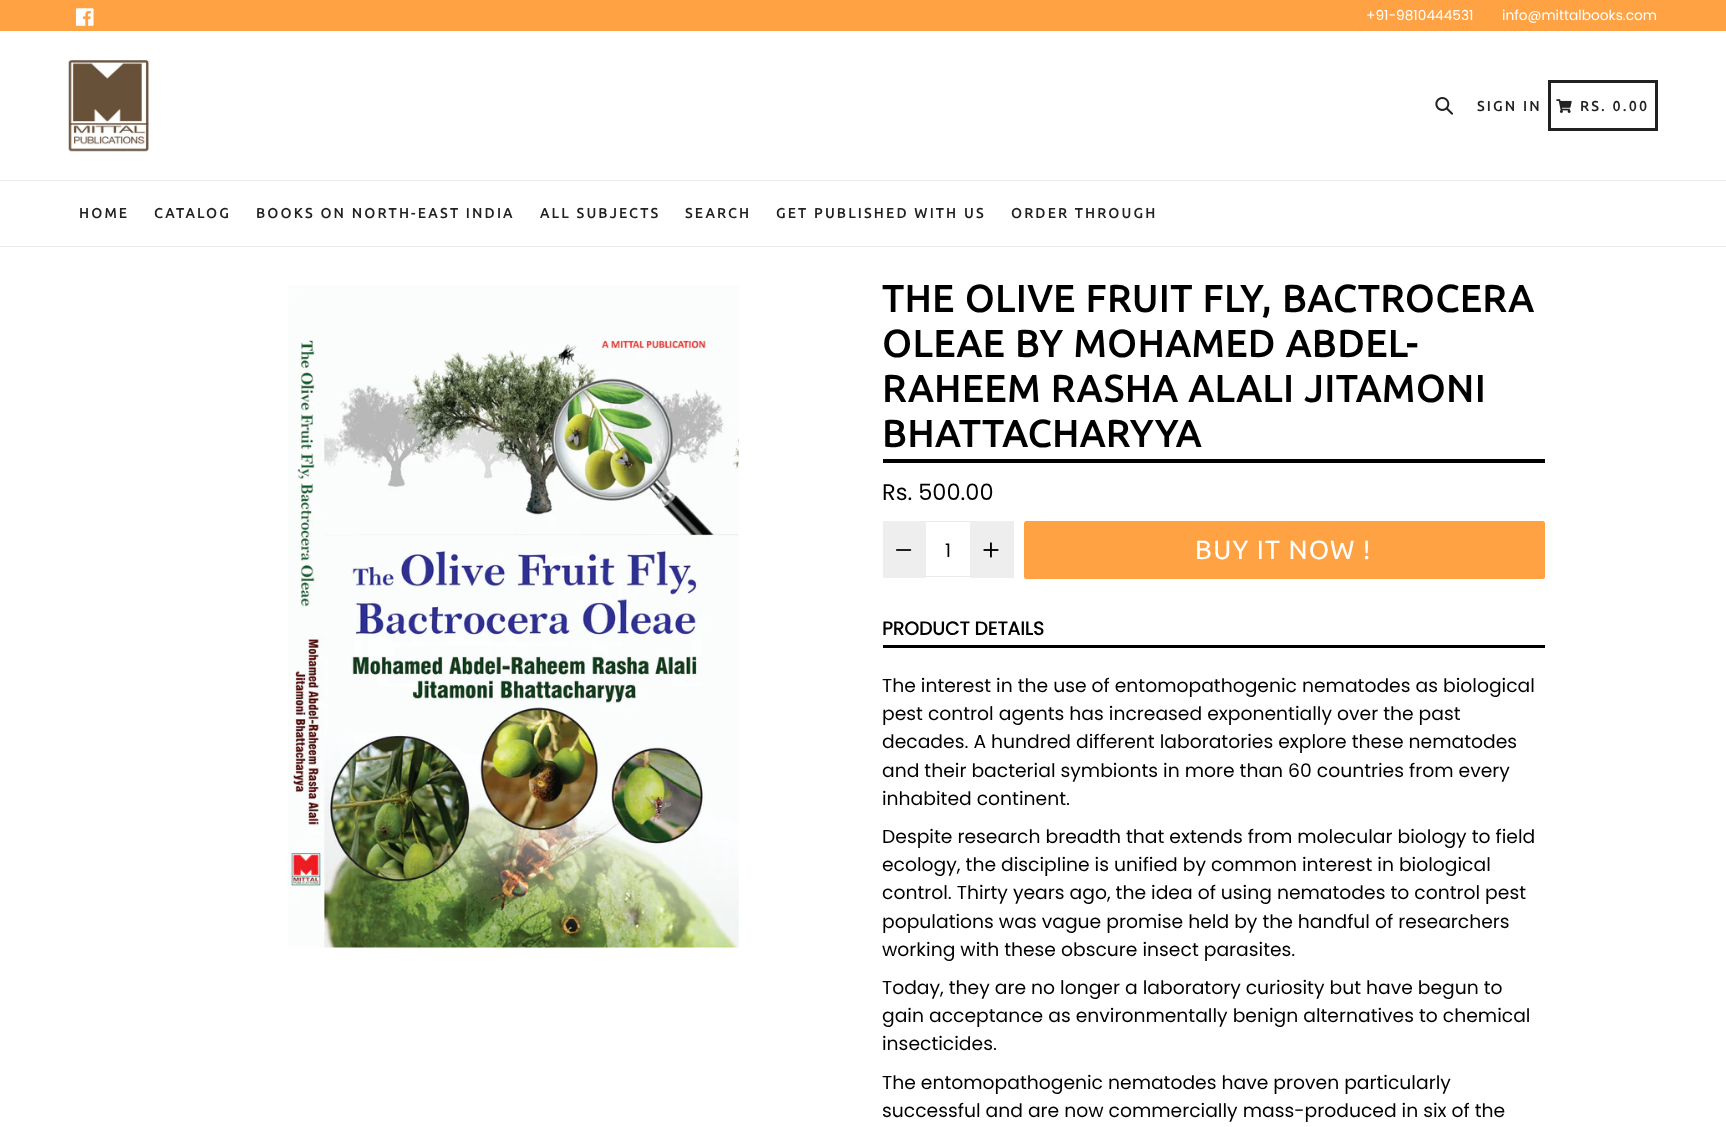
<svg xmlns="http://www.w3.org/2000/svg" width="1726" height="1127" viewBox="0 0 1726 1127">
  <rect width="100%" height="100%" fill="#ffffff"/>
  <rect x="0" y="0" width="1726" height="31" fill="#fea244"/>
  <image x="75" y="8" width="19" height="18" href="img1.png"/>
  <text x="1366" y="20" font-family="Poppins" font-size="13.75" fill="#ffffff">+91-9810444531</text>
  <text x="1502" y="20" font-family="Poppins" font-size="13.75" fill="#ffffff">info@mittalbooks.com</text>
  <rect x="0" y="180" width="1726" height="1" fill="#ebebeb"/>
  <image x="68" y="60" width="81" height="92" href="img2.png"/>
  <image x="1435" y="97" width="19" height="18" href="img3.png"/>
  <text x="1477" y="111" font-family="Ubuntu" font-size="13.75" font-weight="bold" letter-spacing="2.5" fill="#212121">SIGN IN</text>
  <rect x="1549.5" y="81.5" width="107" height="48" fill="none" stroke="#212121" stroke-width="3"/>
  <image x="1556" y="99" width="16" height="14" href="img4.png"/>
  <text x="1580" y="111" font-family="Ubuntu" font-size="13.75" font-weight="bold" letter-spacing="2.5" fill="#212121">RS. 0.00</text>
  <rect x="0" y="246" width="1726" height="1" fill="#ebebeb"/>
  <text x="79" y="218" font-family="Ubuntu" font-size="13.75" font-weight="bold" letter-spacing="2.5" fill="#212121">HOME</text>
  <text x="154" y="218" font-family="Ubuntu" font-size="13.75" font-weight="bold" letter-spacing="2.5" fill="#212121">CATALOG</text>
  <text x="256" y="218" font-family="Ubuntu" font-size="13.75" font-weight="bold" letter-spacing="2.5" fill="#212121">BOOKS ON NORTH-EAST INDIA</text>
  <text x="540" y="218" font-family="Ubuntu" font-size="13.75" font-weight="bold" letter-spacing="2.5" fill="#212121">ALL SUBJECTS</text>
  <text x="685" y="218" font-family="Ubuntu" font-size="13.75" font-weight="bold" letter-spacing="2.5" fill="#212121">SEARCH</text>
  <text x="776" y="218" font-family="Ubuntu" font-size="13.75" font-weight="bold" letter-spacing="2.5" fill="#212121">GET PUBLISHED WITH US</text>
  <text x="1011" y="218" font-family="Ubuntu" font-size="13.75" font-weight="bold" letter-spacing="2.5" fill="#212121">ORDER THROUGH</text>
  <image x="287" y="285" width="452" height="663" href="img5.png"/>
  <rect x="883" y="459" width="662" height="4" fill="#000000"/>
  <text x="882" y="312" font-family="Ubuntu" font-size="37.5" font-weight="bold" letter-spacing="1.25" fill="#000000">THE OLIVE FRUIT FLY, BACTROCERA</text>
  <text x="882" y="357" font-family="Ubuntu" font-size="37.5" font-weight="bold" letter-spacing="1.25" fill="#000000">OLEAE BY MOHAMED ABDEL-</text>
  <text x="882" y="402" font-family="Ubuntu" font-size="37.5" font-weight="bold" letter-spacing="1.25" fill="#000000">RAHEEM RASHA ALALI JITAMONI</text>
  <text x="882" y="447" font-family="Ubuntu" font-size="37.5" font-weight="bold" letter-spacing="1.25" fill="#000000">BHATTACHARYYA</text>
  <text x="882" y="500" font-family="Poppins" font-size="22.5" fill="#000000">Rs. 500.00</text>
  <rect x="883" y="521" width="43" height="57" fill="#eeeeee"/>
  <image x="896" y="549" width="16" height="2" href="img6.png"/>
  <rect x="926" y="521" width="44" height="1" fill="#ebebeb"/>
  <rect x="926" y="576" width="44" height="1" fill="#ebebeb"/>
  <text x="945" y="557" font-family="Poppins" font-size="18.75" fill="#000000">1</text>
  <rect x="970" y="521" width="44" height="57" fill="#eeeeee"/>
  <image x="983" y="542" width="16" height="16" href="img7.png"/>
  <rect x="1024" y="521" width="521" height="58" rx="2.5" fill="#fea244"/>
  <text x="1195" y="559" font-family="Ubuntu" font-size="26.25" letter-spacing="1.25" fill="#ffffff">BUY IT NOW !</text>
  <rect x="883" y="645" width="662" height="3" fill="#000000"/>
  <text x="882" y="635" font-family="Poppins" font-size="18.75" font-weight="bold" fill="#000000">PRODUCT DETAILS</text>
  <text x="882" y="692" font-family="Poppins" font-size="18.75" fill="#000000">The interest in the use of entomopathogenic nematodes as biological</text>
  <text x="882" y="720" font-family="Poppins" font-size="18.75" fill="#000000">pest control agents has increased exponentially over the past</text>
  <text x="882" y="748" font-family="Poppins" font-size="18.75" fill="#000000">decades. A hundred different laboratories explore these nematodes</text>
  <text x="882" y="777" font-family="Poppins" font-size="18.75" fill="#000000">and their bacterial symbionts in more than 60 countries from every</text>
  <text x="882" y="805" font-family="Poppins" font-size="18.75" fill="#000000">inhabited continent.</text>
  <text x="882" y="843" font-family="Poppins" font-size="18.75" fill="#000000">Despite research breadth that extends from molecular biology to field</text>
  <text x="882" y="871" font-family="Poppins" font-size="18.75" fill="#000000">ecology, the discipline is unified by common interest in biological</text>
  <text x="882" y="899" font-family="Poppins" font-size="18.75" fill="#000000">control. Thirty years ago, the idea of using nematodes to control pest</text>
  <text x="882" y="928" font-family="Poppins" font-size="18.75" fill="#000000">populations was vague promise held by the handful of researchers</text>
  <text x="882" y="956" font-family="Poppins" font-size="18.75" fill="#000000">working with these obscure insect parasites.</text>
  <text x="882" y="994" font-family="Poppins" font-size="18.75" fill="#000000">Today, they are no longer a laboratory curiosity but have begun to</text>
  <text x="882" y="1022" font-family="Poppins" font-size="18.75" fill="#000000">gain acceptance as environmentally benign alternatives to chemical</text>
  <text x="882" y="1050" font-family="Poppins" font-size="18.75" fill="#000000">insecticides.</text>
  <text x="882" y="1089" font-family="Poppins" font-size="18.75" fill="#000000">The entomopathogenic nematodes have proven particularly</text>
  <text x="882" y="1117" font-family="Poppins" font-size="18.75" fill="#000000">successful and are now commercially mass-produced in six of the</text>
</svg>
